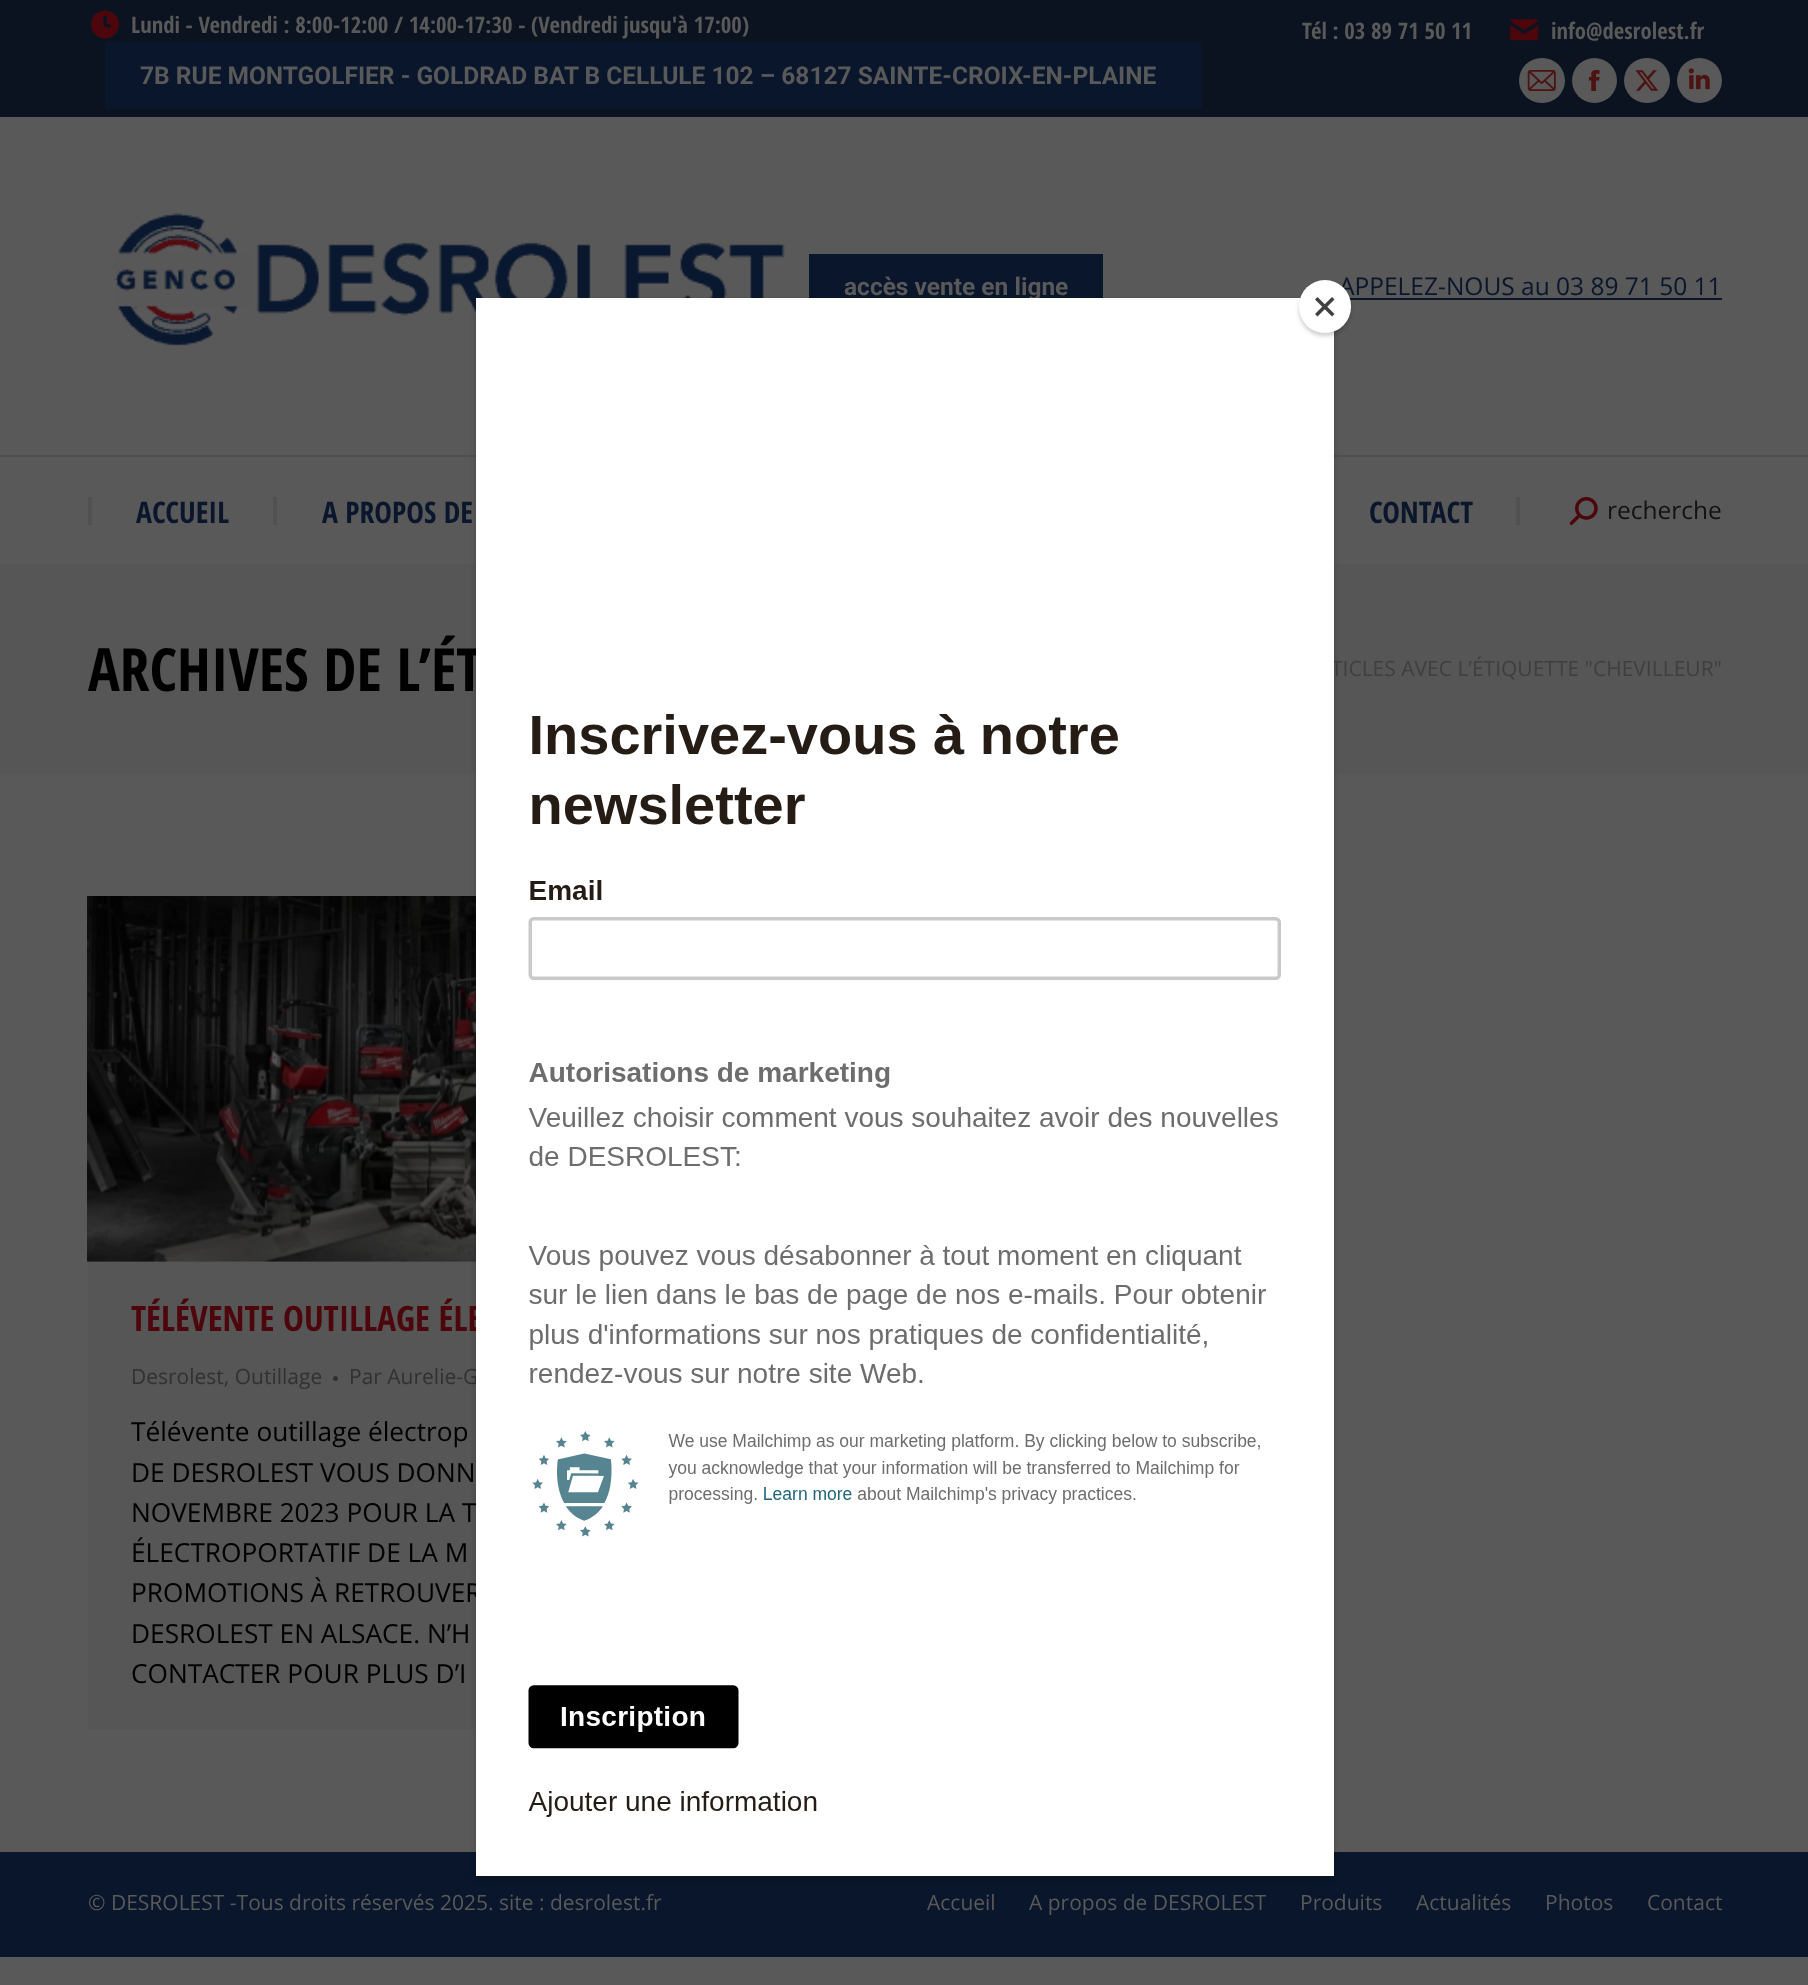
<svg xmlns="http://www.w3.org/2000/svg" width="1808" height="1985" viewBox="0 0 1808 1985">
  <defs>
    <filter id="blur1" x="-50%" y="-200%" width="200%" height="500%"><feGaussianBlur stdDeviation="3.5"/></filter>
    <filter id="blur2" x="-50%" y="-200%" width="200%" height="500%"><feGaussianBlur stdDeviation="2"/></filter>
  </defs>
  <rect width="100%" height="100%" fill="#595959"/>
  <rect x="0" y="0" width="1808" height="117" fill="#0b1320"/>
  <image x="91" y="10" width="28" height="29" href="img1.png"/>
  <text x="131" y="33" font-family="Open Sans Condensed" font-size="22.75" font-weight="bold" fill="#595959">Lundi - Vendredi : 8:00-12:00 / 14:00-17:30 - (Vendredi jusqu'à 17:00)</text>
  <rect x="105" y="42" width="1097" height="67" fill="#09162b"/>
  <text x="140" y="84" font-family="Roboto" font-size="24.5" font-weight="bold" fill="#595959">7B RUE MONTGOLFIER - GOLDRAD BAT B CELLULE 102 – 68127 SAINTE-CROIX-EN-PLAINE</text>
  <text x="1302" y="39" font-family="Open Sans Condensed" font-size="22.75" font-weight="bold" fill="#595959">Tél : 03 89 71 50 11</text>
  <image x="1510" y="19" width="29" height="22" href="img2.png"/>
  <text x="1551" y="39" font-family="Open Sans Condensed" font-size="22.75" font-weight="bold" fill="#595959">info@desrolest.fr</text>
  <rect x="1519" y="58" width="46" height="45" rx="22.5" fill="#595959"/>
  <image x="1527" y="70" width="29" height="21" href="img3.png"/>
  <circle cx="1594.5" cy="80.5" r="22.5" fill="#595959"/>
  <image x="1588" y="70" width="12" height="21" href="img4.png"/>
  <rect x="1624" y="58" width="46" height="45" rx="22.5" fill="#595959"/>
  <image x="1635" y="70" width="24" height="21" href="img5.png"/>
  <circle cx="1699.5" cy="80.5" r="22.5" fill="#595959"/>
  <image x="1688" y="68" width="22" height="22" href="img6.png"/>
  <image x="115" y="213" width="670" height="133" href="img7.png"/>
  <rect x="809" y="254" width="294" height="44" fill="#09162b"/>
  <text x="844" y="295" font-family="Roboto" font-size="24.5" font-weight="bold" fill="#595959">accès vente en ligne</text>
  <text x="1339" y="295" font-family="Open Sans" font-size="24.5" fill="#09162b">APPELEZ-NOUS au 03 89 71 50 11</text>
  <rect x="1349" y="298" width="373" height="2" fill="#09162b"/>
  <rect x="0" y="455" width="1808" height="2" fill="#4e4e4e"/>
  <rect x="88" y="497" width="4" height="28" fill="#515151"/>
  <text x="136" y="523" font-family="Open Sans Condensed" font-size="29.75" font-weight="bold" fill="#09162b">ACCUEIL</text>
  <rect x="273" y="497" width="4" height="28" fill="#515151"/>
  <text x="322" y="523" font-family="Open Sans Condensed" font-size="29.75" font-weight="bold" fill="#09162b">A PROPOS DE</text>
  <text x="1369" y="523" font-family="Open Sans Condensed" font-size="29.75" font-weight="bold" fill="#09162b">CONTACT</text>
  <rect x="1516" y="497" width="4" height="28" fill="#515151"/>
  <image x="1569" y="497" width="29" height="28" href="img8.png"/>
  <text x="1607" y="519" font-family="Open Sans" font-size="24.5" fill="#121212">recherche</text>
  <rect x="0" y="564" width="1808" height="210" fill="#565656"/>
  <text x="88" y="691" font-family="Open Sans Condensed" font-size="59.5" font-weight="bold" fill="#000000">ARCHIVES DE L’ÉT</text>
  <text x="1331" y="676" font-family="Open Sans" font-size="21" fill="#3f3f41">TICLES AVEC L’ÉTIQUETTE "CHEVILLEUR"</text>
  <rect x="88" y="1261" width="388" height="468" fill="#565656"/>
  <image x="87" y="896" width="389" height="366" href="img9.png"/>
  <text x="131" y="1331" font-family="Open Sans Condensed" font-size="35" font-weight="bold" fill="#4d060b">TÉLÉVENTE OUTILLAGE ÉLE</text>
  <text x="131" y="1384" font-family="Open Sans" font-size="21" fill="#313134">Desrolest, Outillage</text>
  <circle cx="335.5" cy="1378.5" r="2.5" fill="#313134"/>
  <text x="349" y="1384" font-family="Open Sans" font-size="21" fill="#313134">Par Aurelie-G</text>
  <text x="131" y="1441" font-family="Open Sans" font-size="26.25" fill="#000000">Télévente outillage électrop</text>
  <text x="131" y="1482" font-family="Open Sans" font-size="26.25" fill="#000000">DE DESROLEST VOUS DONN</text>
  <text x="131" y="1522" font-family="Open Sans" font-size="26.25" fill="#000000">NOVEMBRE 2023 POUR LA T</text>
  <text x="131" y="1562" font-family="Open Sans" font-size="26.25" fill="#000000">ÉLECTROPORTATIF DE LA M</text>
  <text x="131" y="1602" font-family="Open Sans" font-size="26.25" fill="#000000">PROMOTIONS À RETROUVER</text>
  <text x="131" y="1643" font-family="Open Sans" font-size="26.25" fill="#000000">DESROLEST EN ALSACE. N’H</text>
  <text x="131" y="1683" font-family="Open Sans" font-size="26.25" fill="#000000">CONTACTER POUR PLUS D’I</text>
  <rect x="0" y="1852" width="1808" height="105" fill="#09162b"/>
  <text x="88" y="1910" font-family="Open Sans" font-size="21" fill="#595959">© DESROLEST -Tous droits réservés 2025. site : desrolest.fr</text>
  <text x="927" y="1910" font-family="Open Sans" font-size="21" fill="#595959">Accueil</text>
  <text x="1029" y="1910" font-family="Open Sans" font-size="21" fill="#595959">A propos de DESROLEST</text>
  <text x="1300" y="1910" font-family="Open Sans" font-size="21" fill="#595959">Produits</text>
  <text x="1416" y="1910" font-family="Open Sans" font-size="21" fill="#595959">Actualités</text>
  <text x="1545" y="1910" font-family="Open Sans" font-size="21" fill="#595959">Photos</text>
  <text x="1647" y="1910" font-family="Open Sans" font-size="21" fill="#595959">Contact</text>
  <rect x="476" y="301" width="858" height="1579" fill="#000000" fill-opacity="0.2" filter="url(#blur1)"/>
  <image x="476" y="298" width="858" height="1578" href="img10.png"/>
  <rect x="1299" y="284" width="52" height="52" rx="26" fill="#000000" fill-opacity="0.2" filter="url(#blur2)"/>
  <rect x="1299" y="280" width="52" height="53" rx="26" fill="#ffffff"/>
  <path d="M1332 297L1334.5 299.5L1317.5 316.5L1315 314Z" fill="#414141"/>
  <path d="M1315 299.5L1317.5 297L1334.5 314L1332 316.5Z" fill="#414141"/>
</svg>
